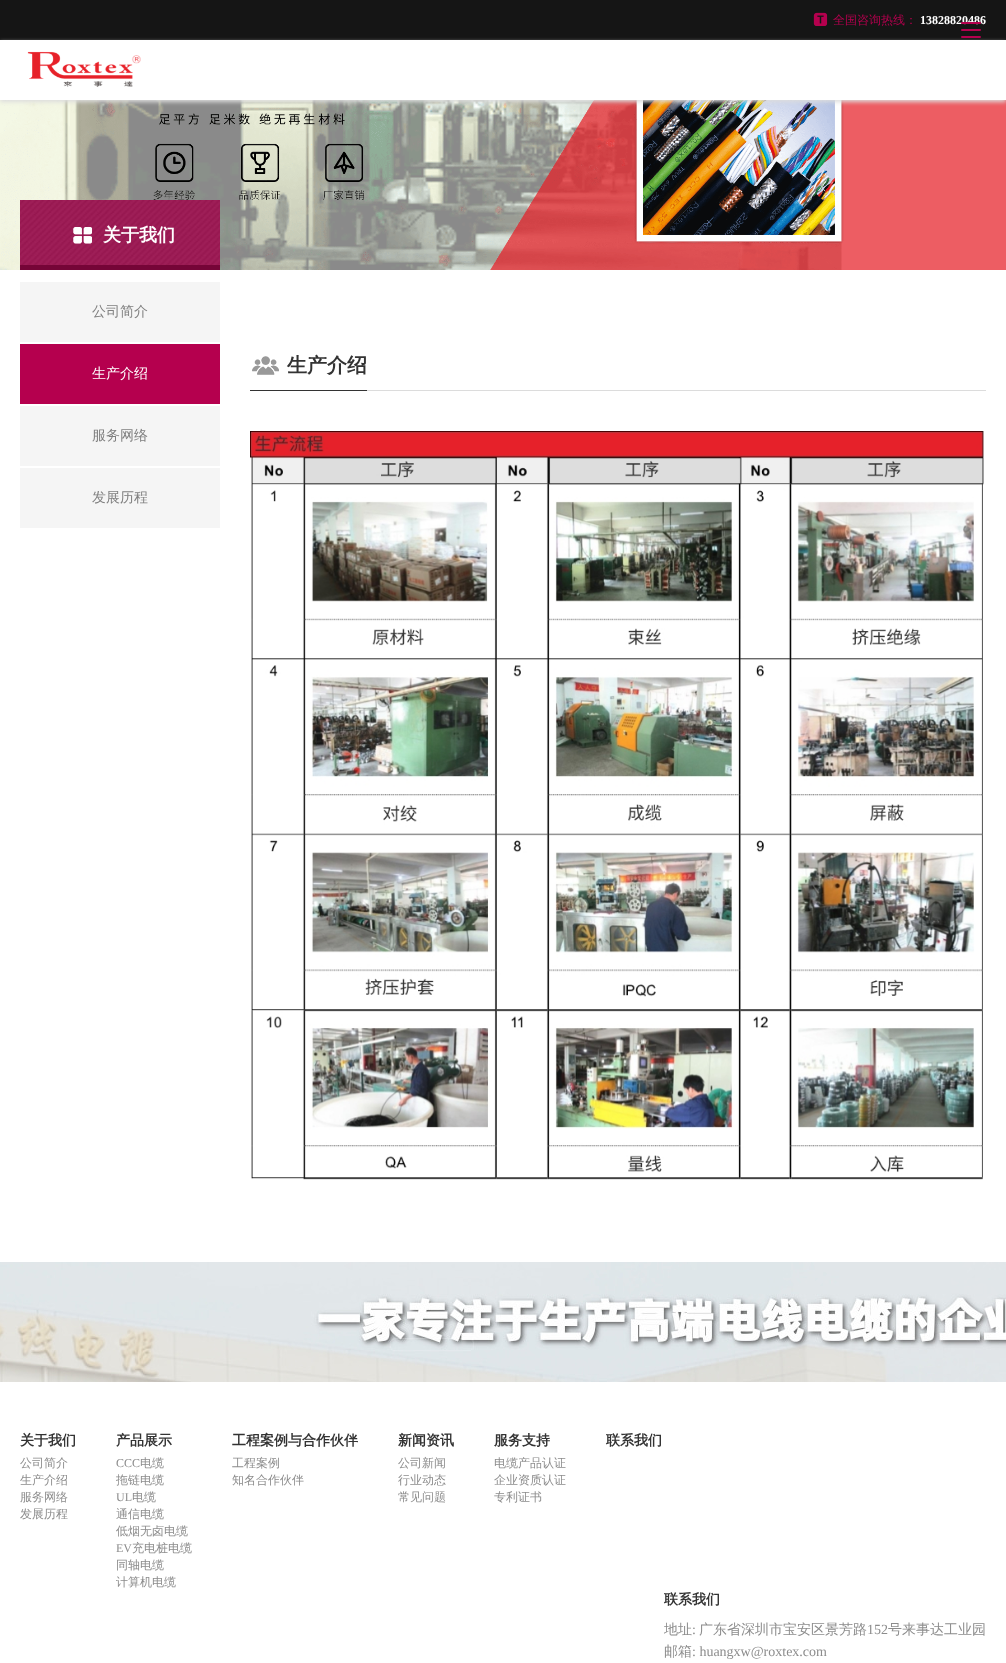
<svg xmlns="http://www.w3.org/2000/svg" width="1006" height="1663" viewBox="0 0 1006 1663">
  <defs>
    <filter id="blur1" x="-50%" y="-200%" width="200%" height="500%"><feGaussianBlur stdDeviation="2"/></filter>
  </defs>
  <rect width="100%" height="100%" fill="#ffffff"/>
  <rect x="0" y="0" width="1006" height="40" fill="#151515"/>
  <image x="813" y="12" width="15" height="14" href="img1.png"/>
  <text x="833" y="24" font-family="WenQuanYi Zen Hei" font-size="12" font-weight="500" fill="#b5004e">全国咨询热线：</text>
  <text x="920" y="24" font-family="Liberation Serif" font-size="12" font-weight="bold" fill="#ffffff">13828820486</text>
  <rect x="961" y="22" width="20" height="2" rx="1" fill="#b5004e"/>
  <rect x="961" y="29" width="20" height="2" rx="1" fill="#b5004e"/>
  <image x="0" y="100" width="1006" height="170" href="img3.png"/>
  <rect x="0" y="42" width="1006" height="60" fill="#dddddd" filter="url(#blur1)"/>
  <rect x="961" y="36" width="20" height="2" rx="1" fill="#b5004e"/>
  <rect x="0" y="40" width="1006" height="60" fill="#ffffff"/>
  <image x="27" y="51" width="114" height="36" href="img2.png"/>
  <image x="20" y="200" width="200" height="65" href="img4.png"/>
  <image x="73" y="227" width="19" height="17" href="img5.png"/>
  <text x="103" y="241" font-family="WenQuanYi Zen Hei" font-size="18" font-weight="bold" fill="#ffffff">关于我们</text>
  <rect x="20" y="265" width="200" height="5" fill="#750537"/>
  <rect x="20" y="282" width="200" height="60" fill="#f5f5f5"/>
  <text x="92" y="316" font-family="WenQuanYi Zen Hei" font-size="14" font-weight="500" fill="#808080">公司简介</text>
  <rect x="20" y="344" width="200" height="60" fill="#b5004e"/>
  <text x="92" y="378" font-family="WenQuanYi Zen Hei" font-size="14" font-weight="500" fill="#ffffff">生产介绍</text>
  <rect x="20" y="406" width="200" height="60" fill="#f5f5f5"/>
  <text x="92" y="440" font-family="WenQuanYi Zen Hei" font-size="14" font-weight="500" fill="#808080">服务网络</text>
  <rect x="20" y="468" width="200" height="60" fill="#f5f5f5"/>
  <text x="92" y="502" font-family="WenQuanYi Zen Hei" font-size="14" font-weight="500" fill="#808080">发展历程</text>
  <rect x="367" y="390" width="619" height="1" fill="#dcdcdc"/>
  <image x="252" y="356" width="27" height="19" href="img6.png"/>
  <text x="287" y="372" font-family="WenQuanYi Zen Hei" font-size="20" font-weight="bold" fill="#333333">生产介绍</text>
  <rect x="250" y="390" width="117" height="1" fill="#333333"/>
  <image x="250" y="431" width="734" height="749" href="img7.png"/>
  <image x="0" y="1262" width="1006" height="120" href="img8.png"/>
  <text x="20" y="1445" font-family="WenQuanYi Zen Hei" font-size="14" font-weight="bold" fill="#333333">关于我们</text>
  <text x="20" y="1467" font-family="WenQuanYi Zen Hei" font-size="12" font-weight="500" fill="#8c8c8c">公司简介</text>
  <text x="20" y="1484" font-family="WenQuanYi Zen Hei" font-size="12" font-weight="500" fill="#8c8c8c">生产介绍</text>
  <text x="20" y="1501" font-family="WenQuanYi Zen Hei" font-size="12" font-weight="500" fill="#8c8c8c">服务网络</text>
  <text x="20" y="1518" font-family="WenQuanYi Zen Hei" font-size="12" font-weight="500" fill="#8c8c8c">发展历程</text>
  <text x="116" y="1445" font-family="WenQuanYi Zen Hei" font-size="14" font-weight="bold" fill="#333333">产品展示</text>
  <text x="116" y="1467" font-family="Liberation Serif" font-size="12" fill="#8c8c8c">CCC</text>
  <text x="140" y="1467" font-family="WenQuanYi Zen Hei" font-size="12" font-weight="500" fill="#8c8c8c">电缆</text>
  <text x="116" y="1484" font-family="WenQuanYi Zen Hei" font-size="12" font-weight="500" fill="#8c8c8c">拖链电缆</text>
  <text x="116" y="1501" font-family="Liberation Serif" font-size="12" fill="#8c8c8c">UL</text>
  <text x="132" y="1501" font-family="WenQuanYi Zen Hei" font-size="12" font-weight="500" fill="#8c8c8c">电缆</text>
  <text x="116" y="1518" font-family="WenQuanYi Zen Hei" font-size="12" font-weight="500" fill="#8c8c8c">通信电缆</text>
  <text x="116" y="1535" font-family="WenQuanYi Zen Hei" font-size="12" font-weight="500" fill="#8c8c8c">低烟无卤电缆</text>
  <text x="116" y="1552" font-family="Liberation Serif" font-size="12" fill="#8c8c8c">EV</text>
  <text x="132" y="1552" font-family="WenQuanYi Zen Hei" font-size="12" font-weight="500" fill="#8c8c8c">充电桩电缆</text>
  <text x="116" y="1569" font-family="WenQuanYi Zen Hei" font-size="12" font-weight="500" fill="#8c8c8c">同轴电缆</text>
  <text x="116" y="1586" font-family="WenQuanYi Zen Hei" font-size="12" font-weight="500" fill="#8c8c8c">计算机电缆</text>
  <text x="232" y="1445" font-family="WenQuanYi Zen Hei" font-size="14" font-weight="bold" fill="#333333">工程案例与合作伙伴</text>
  <text x="232" y="1467" font-family="WenQuanYi Zen Hei" font-size="12" font-weight="500" fill="#8c8c8c">工程案例</text>
  <text x="232" y="1484" font-family="WenQuanYi Zen Hei" font-size="12" font-weight="500" fill="#8c8c8c">知名合作伙伴</text>
  <text x="398" y="1445" font-family="WenQuanYi Zen Hei" font-size="14" font-weight="bold" fill="#333333">新闻资讯</text>
  <text x="398" y="1467" font-family="WenQuanYi Zen Hei" font-size="12" font-weight="500" fill="#8c8c8c">公司新闻</text>
  <text x="398" y="1484" font-family="WenQuanYi Zen Hei" font-size="12" font-weight="500" fill="#8c8c8c">行业动态</text>
  <text x="398" y="1501" font-family="WenQuanYi Zen Hei" font-size="12" font-weight="500" fill="#8c8c8c">常见问题</text>
  <text x="494" y="1445" font-family="WenQuanYi Zen Hei" font-size="14" font-weight="bold" fill="#333333">服务支持</text>
  <text x="494" y="1467" font-family="WenQuanYi Zen Hei" font-size="12" font-weight="500" fill="#8c8c8c">电缆产品认证</text>
  <text x="494" y="1484" font-family="WenQuanYi Zen Hei" font-size="12" font-weight="500" fill="#8c8c8c">企业资质认证</text>
  <text x="494" y="1501" font-family="WenQuanYi Zen Hei" font-size="12" font-weight="500" fill="#8c8c8c">专利证书</text>
  <text x="606" y="1445" font-family="WenQuanYi Zen Hei" font-size="14" font-weight="bold" fill="#333333">联系我们</text>
  <text x="664" y="1604" font-family="WenQuanYi Zen Hei" font-size="14" font-weight="bold" fill="#333333">联系我们</text>
  <text x="664" y="1634" font-family="WenQuanYi Zen Hei" font-size="14" font-weight="500" fill="#8c8c8c">地址</text>
  <text x="692" y="1634" font-family="Liberation Serif" font-size="14" fill="#8c8c8c">:</text>
  <text x="699" y="1634" font-family="WenQuanYi Zen Hei" font-size="14" font-weight="500" fill="#8c8c8c">广东省深圳市宝安区景芳路</text>
  <text x="867" y="1634" font-family="Liberation Serif" font-size="14" fill="#8c8c8c">152</text>
  <text x="888" y="1634" font-family="WenQuanYi Zen Hei" font-size="14" font-weight="500" fill="#8c8c8c">号来事达工业园</text>
  <text x="664" y="1656" font-family="WenQuanYi Zen Hei" font-size="14" font-weight="500" fill="#8c8c8c">邮箱</text>
  <text x="692" y="1656" font-family="Liberation Serif" font-size="14" fill="#8c8c8c">: huangxw@roxtex.com</text>
</svg>
